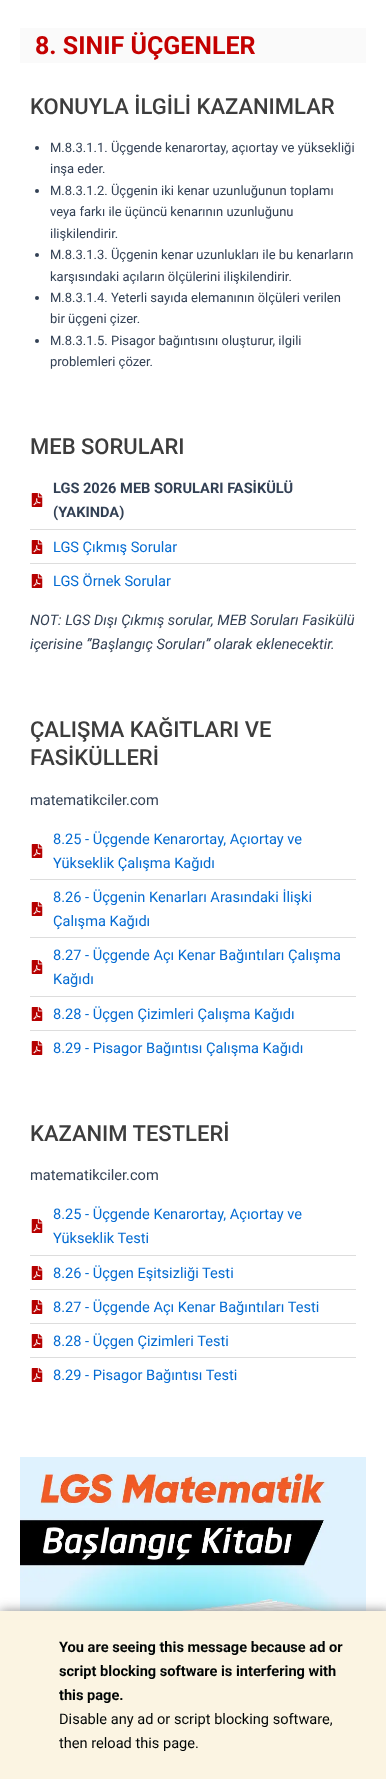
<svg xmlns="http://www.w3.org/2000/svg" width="386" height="1779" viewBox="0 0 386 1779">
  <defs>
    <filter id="blur1" x="-50%" y="-200%" width="200%" height="500%"><feGaussianBlur stdDeviation="6"/></filter>
  </defs>
  <rect width="100%" height="100%" fill="#ffffff"/>
  <rect x="20" y="28" width="346" height="35" fill="#fafafa"/>
  <text x="35" y="54" font-family="Roboto" font-size="25" font-weight="bold" fill="#c40000">8. SINIF ÜÇGENLER</text>
  <text x="30" y="114" font-family="Roboto" font-size="22" font-weight="500" fill="#3d3d3d">KONUYLA İLGİLİ KAZANIMLAR</text>
  <circle cx="37" cy="148" r="2" fill="#334155"/>
  <text x="50" y="152" font-family="Roboto" font-size="13" fill="#334155">M.8.3.1.1. Üçgende kenarortay, açıortay ve yüksekliği</text>
  <text x="50" y="173" font-family="Roboto" font-size="13" fill="#334155">inşa eder.</text>
  <circle cx="37" cy="191" r="2" fill="#334155"/>
  <text x="50" y="195" font-family="Roboto" font-size="13" fill="#334155">M.8.3.1.2. Üçgenin iki kenar uzunluğunun toplamı</text>
  <text x="50" y="216" font-family="Roboto" font-size="13" fill="#334155">veya farkı ile üçüncü kenarının uzunluğunu</text>
  <text x="50" y="238" font-family="Roboto" font-size="13" fill="#334155">ilişkilendirir.</text>
  <circle cx="37" cy="255" r="2" fill="#334155"/>
  <text x="50" y="259" font-family="Roboto" font-size="13" fill="#334155">M.8.3.1.3. Üçgenin kenar uzunlukları ile bu kenarların</text>
  <text x="50" y="281" font-family="Roboto" font-size="13" fill="#334155">karşısındaki açıların ölçülerini ilişkilendirir.</text>
  <circle cx="37" cy="298" r="2" fill="#334155"/>
  <text x="50" y="302" font-family="Roboto" font-size="13" fill="#334155">M.8.3.1.4. Yeterli sayıda elemanının ölçüleri verilen</text>
  <text x="50" y="323" font-family="Roboto" font-size="13" fill="#334155">bir üçgeni çizer.</text>
  <circle cx="37" cy="341" r="2" fill="#334155"/>
  <text x="50" y="345" font-family="Roboto" font-size="13" fill="#334155">M.8.3.1.5. Pisagor bağıntısını oluşturur, ilgili</text>
  <text x="50" y="366" font-family="Roboto" font-size="13" fill="#334155">problemleri çözer.</text>
  <text x="30" y="454" font-family="Roboto" font-size="22" font-weight="500" fill="#3d3d3d">MEB SORULARI</text>
  <image x="31" y="493" width="12" height="14" href="img1.png"/>
  <text x="53" y="493" font-family="Roboto" font-size="14.6" font-weight="bold" fill="#334155">LGS 2026 MEB SORULARI FASİKÜLÜ</text>
  <text x="53" y="517" font-family="Roboto" font-size="14.6" font-weight="bold" fill="#334155">(YAKINDA)</text>
  <rect x="30" y="529" width="326" height="1" fill="#dddddd"/>
  <image x="31" y="540" width="12" height="14" href="img1.png"/>
  <text x="53" y="552" font-family="Roboto" font-size="14.6" fill="#046bd2">LGS Çıkmış Sorular</text>
  <rect x="30" y="563" width="326" height="1" fill="#dddddd"/>
  <image x="31" y="574" width="12" height="14" href="img1.png"/>
  <text x="53" y="586" font-family="Roboto" font-size="14.6" fill="#046bd2">LGS Örnek Sorular</text>
  <text x="30" y="625" font-family="Roboto" font-size="14.6" font-style="italic" fill="#334155">NOT: LGS Dışı Çıkmış sorular, MEB Soruları Fasikülü</text>
  <text x="30" y="649" font-family="Roboto" font-size="14.6" font-style="italic" fill="#334155">içerisine ”Başlangıç Soruları” olarak eklenecektir.</text>
  <text x="30" y="737" font-family="Roboto" font-size="22" font-weight="500" fill="#3d3d3d">ÇALIŞMA KAĞITLARI VE</text>
  <text x="30" y="765" font-family="Roboto" font-size="22" font-weight="500" fill="#3d3d3d">FASİKÜLLERİ</text>
  <text x="30" y="805" font-family="Roboto" font-size="14.6" fill="#334155">matematikciler.com</text>
  <image x="31" y="844" width="12" height="14" href="img1.png"/>
  <text x="53" y="844" font-family="Roboto" font-size="14.6" fill="#046bd2">8.25 - Üçgende Kenarortay, Açıortay ve</text>
  <text x="53" y="868" font-family="Roboto" font-size="14.6" fill="#046bd2">Yükseklik Çalışma Kağıdı</text>
  <rect x="30" y="879" width="326" height="1" fill="#dddddd"/>
  <image x="31" y="902" width="12" height="14" href="img1.png"/>
  <text x="53" y="902" font-family="Roboto" font-size="14.6" fill="#046bd2">8.26 - Üçgenin Kenarları Arasındaki İlişki</text>
  <text x="53" y="926" font-family="Roboto" font-size="14.6" fill="#046bd2">Çalışma Kağıdı</text>
  <rect x="30" y="937" width="326" height="1" fill="#dddddd"/>
  <image x="31" y="960" width="12" height="14" href="img1.png"/>
  <text x="53" y="960" font-family="Roboto" font-size="14.6" fill="#046bd2">8.27 - Üçgende Açı Kenar Bağıntıları Çalışma</text>
  <text x="53" y="984" font-family="Roboto" font-size="14.6" fill="#046bd2">Kağıdı</text>
  <rect x="30" y="996" width="326" height="1" fill="#dddddd"/>
  <image x="31" y="1007" width="12" height="14" href="img1.png"/>
  <text x="53" y="1019" font-family="Roboto" font-size="14.6" fill="#046bd2">8.28 - Üçgen Çizimleri Çalışma Kağıdı</text>
  <rect x="30" y="1030" width="326" height="1" fill="#dddddd"/>
  <image x="31" y="1041" width="12" height="14" href="img1.png"/>
  <text x="53" y="1053" font-family="Roboto" font-size="14.6" fill="#046bd2">8.29 - Pisagor Bağıntısı Çalışma Kağıdı</text>
  <text x="30" y="1141" font-family="Roboto" font-size="22" font-weight="500" fill="#3d3d3d">KAZANIM TESTLERİ</text>
  <text x="30" y="1180" font-family="Roboto" font-size="14.6" fill="#334155">matematikciler.com</text>
  <image x="31" y="1219" width="12" height="14" href="img1.png"/>
  <text x="53" y="1219" font-family="Roboto" font-size="14.6" fill="#046bd2">8.25 - Üçgende Kenarortay, Açıortay ve</text>
  <text x="53" y="1243" font-family="Roboto" font-size="14.6" fill="#046bd2">Yükseklik Testi</text>
  <rect x="30" y="1255" width="326" height="1" fill="#dddddd"/>
  <image x="31" y="1266" width="12" height="14" href="img1.png"/>
  <text x="53" y="1278" font-family="Roboto" font-size="14.6" fill="#046bd2">8.26 - Üçgen Eşitsizliği Testi</text>
  <rect x="30" y="1289" width="326" height="1" fill="#dddddd"/>
  <image x="31" y="1300" width="12" height="14" href="img1.png"/>
  <text x="53" y="1312" font-family="Roboto" font-size="14.6" fill="#046bd2">8.27 - Üçgende Açı Kenar Bağıntıları Testi</text>
  <rect x="30" y="1323" width="326" height="1" fill="#dddddd"/>
  <image x="31" y="1334" width="12" height="14" href="img1.png"/>
  <text x="53" y="1346" font-family="Roboto" font-size="14.6" fill="#046bd2">8.28 - Üçgen Çizimleri Testi</text>
  <rect x="30" y="1357" width="326" height="1" fill="#dddddd"/>
  <image x="31" y="1368" width="12" height="14" href="img1.png"/>
  <text x="53" y="1380" font-family="Roboto" font-size="14.6" fill="#046bd2">8.29 - Pisagor Bağıntısı Testi</text>
  <image x="20" y="1457" width="346" height="154" href="img2.png"/>
  <rect x="0" y="1611" width="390" height="168" fill="#888888" filter="url(#blur1)"/>
  <rect x="0" y="1611" width="386" height="168" fill="#fbf4e2"/>
  <text x="59" y="1652" font-family="Roboto" font-size="14.6" font-weight="bold" fill="#000505">You are seeing this message because ad or</text>
  <text x="59" y="1676" font-family="Roboto" font-size="14.6" font-weight="bold" fill="#000505">script blocking software is interfering with</text>
  <text x="59" y="1700" font-family="Roboto" font-size="14.6" font-weight="bold" fill="#000505">this page.</text>
  <text x="59" y="1724" font-family="Roboto" font-size="14.6" fill="#000505">Disable any ad or script blocking software,</text>
  <text x="59" y="1748" font-family="Roboto" font-size="14.6" fill="#000505">then reload this page.</text>
</svg>
